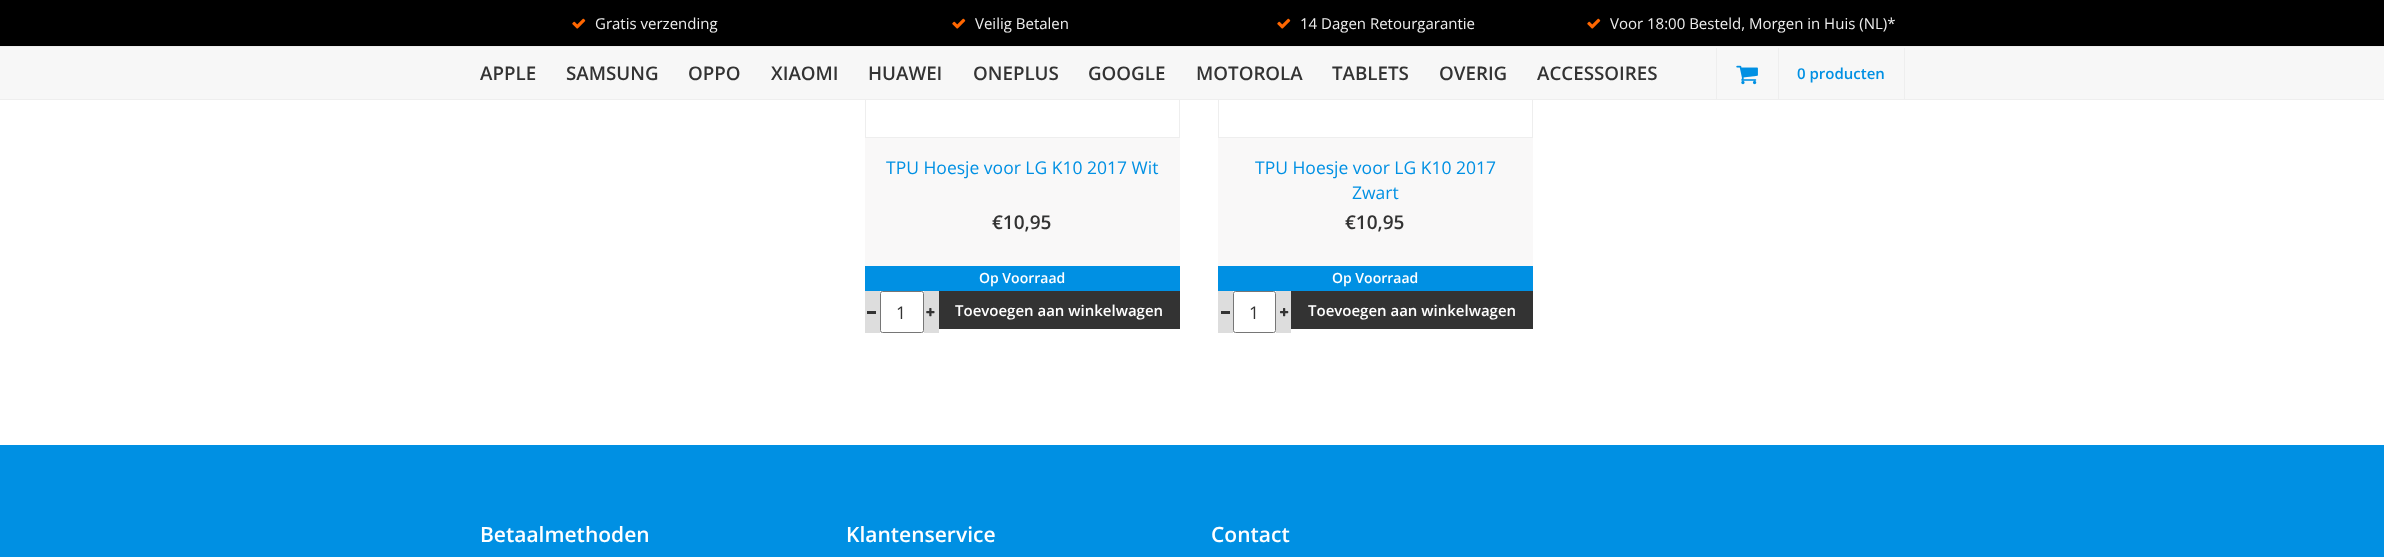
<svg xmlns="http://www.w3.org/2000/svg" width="2384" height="557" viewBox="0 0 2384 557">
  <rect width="100%" height="100%" fill="#ffffff"/>
  <rect x="865.5" y="-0.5" width="314" height="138" fill="none" stroke="#eeeeee"/>
  <rect x="1218.5" y="-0.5" width="314" height="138" fill="none" stroke="#eeeeee"/>
  <rect x="0" y="0" width="2384" height="46" fill="#000000"/>
  <image x="572" y="18" width="14" height="11" href="img1.png"/>
  <text x="595" y="29" font-family="Open Sans" font-size="15" fill="#eeeeee">Gratis verzending</text>
  <image x="952" y="18" width="14" height="11" href="img1.png"/>
  <text x="975" y="29" font-family="Open Sans" font-size="15" fill="#eeeeee">Veilig Betalen</text>
  <image x="1277" y="18" width="14" height="11" href="img1.png"/>
  <text x="1300" y="29" font-family="Open Sans" font-size="15" fill="#eeeeee">14 Dagen Retourgarantie</text>
  <image x="1587" y="18" width="14" height="11" href="img1.png"/>
  <text x="1610" y="29" font-family="Open Sans" font-size="15" fill="#eeeeee">Voor 18:00 Besteld, Morgen in Huis (NL)*</text>
  <rect x="0" y="47" width="2384" height="52" fill="#f7f7f7"/>
  <rect x="0" y="46" width="2384" height="1" fill="#eeeeee"/>
  <rect x="0" y="99" width="2384" height="1" fill="#eeeeee"/>
  <text x="480" y="80" font-family="Open Sans" font-size="18.75" font-weight="600" fill="#333333">APPLE</text>
  <text x="566" y="80" font-family="Open Sans" font-size="18.75" font-weight="600" fill="#333333">SAMSUNG</text>
  <text x="688" y="80" font-family="Open Sans" font-size="18.75" font-weight="600" fill="#333333">OPPO</text>
  <text x="771" y="80" font-family="Open Sans" font-size="18.75" font-weight="600" fill="#333333">XIAOMI</text>
  <text x="868" y="80" font-family="Open Sans" font-size="18.75" font-weight="600" fill="#333333">HUAWEI</text>
  <text x="973" y="80" font-family="Open Sans" font-size="18.75" font-weight="600" fill="#333333">ONEPLUS</text>
  <text x="1088" y="80" font-family="Open Sans" font-size="18.75" font-weight="600" fill="#333333">GOOGLE</text>
  <text x="1196" y="80" font-family="Open Sans" font-size="18.75" font-weight="600" fill="#333333">MOTOROLA</text>
  <text x="1332" y="80" font-family="Open Sans" font-size="18.75" font-weight="600" fill="#333333">TABLETS</text>
  <text x="1439" y="80" font-family="Open Sans" font-size="18.75" font-weight="600" fill="#333333">OVERIG</text>
  <text x="1537" y="80" font-family="Open Sans" font-size="18.75" font-weight="600" fill="#333333">ACCESSOIRES</text>
  <rect x="1778" y="48" width="1" height="51" fill="#eeeeee"/>
  <rect x="1716" y="48" width="1" height="51" fill="#eeeeee"/>
  <image x="1736" y="65" width="22" height="20" href="img2.png"/>
  <rect x="1904" y="48" width="1" height="51" fill="#eeeeee"/>
  <text x="1797" y="79" font-family="Open Sans" font-size="15" font-weight="600" fill="#0090e3">0 producten</text>
  <rect x="865" y="138" width="315" height="128" fill="#f9f8f8"/>
  <text x="886" y="174" font-family="Open Sans" font-size="17.5" fill="#0090e3">TPU Hoesje voor LG K10 2017 Wit</text>
  <text x="992" y="229" font-family="Open Sans" font-size="19" font-weight="600" fill="#333333">€10,95</text>
  <rect x="865" y="266" width="315" height="25" fill="#0090e3"/>
  <text x="979" y="283" font-family="Open Sans" font-size="14" font-weight="600" fill="#ffffff">Op Voorraad</text>
  <rect x="865" y="291" width="15" height="42" fill="#dddddd"/>
  <rect x="867" y="311" width="9" height="3" fill="#333333"/>
  <rect x="880.5" y="291.5" width="43" height="41" rx="2" fill="none" stroke="#767676"/>
  <text x="896" y="319" font-family="Open Sans" font-size="17.5" fill="#333333">1</text>
  <rect x="924" y="291" width="15" height="42" fill="#dddddd"/>
  <image x="926" y="308" width="9" height="9" href="img3.png"/>
  <rect x="939" y="291" width="241" height="38" fill="#333333"/>
  <text x="955" y="316" font-family="Open Sans" font-size="15" font-weight="600" fill="#ffffff">Toevoegen aan winkelwagen</text>
  <rect x="1218" y="138" width="315" height="128" fill="#f9f8f8"/>
  <text x="1255" y="174" font-family="Open Sans" font-size="17.5" fill="#0090e3">TPU Hoesje voor LG K10 2017</text>
  <text x="1352" y="199" font-family="Open Sans" font-size="17.5" fill="#0090e3">Zwart</text>
  <text x="1345" y="229" font-family="Open Sans" font-size="19" font-weight="600" fill="#333333">€10,95</text>
  <rect x="1218" y="266" width="315" height="25" fill="#0090e3"/>
  <text x="1332" y="283" font-family="Open Sans" font-size="14" font-weight="600" fill="#ffffff">Op Voorraad</text>
  <rect x="1218" y="291" width="15" height="42" fill="#dddddd"/>
  <rect x="1221" y="311" width="9" height="3" fill="#333333"/>
  <rect x="1233.5" y="291.5" width="42" height="41" rx="2" fill="none" stroke="#767676"/>
  <text x="1249" y="319" font-family="Open Sans" font-size="17.5" fill="#333333">1</text>
  <rect x="1276" y="291" width="15" height="42" fill="#dddddd"/>
  <image x="1280" y="308" width="9" height="9" href="img4.png"/>
  <rect x="1291" y="291" width="242" height="38" fill="#333333"/>
  <text x="1308" y="316" font-family="Open Sans" font-size="15" font-weight="600" fill="#ffffff">Toevoegen aan winkelwagen</text>
  <rect x="0" y="445" width="2384" height="112" fill="#0090e3"/>
  <text x="480" y="542" font-family="Open Sans" font-size="21" font-weight="600" fill="#ffffff">Betaalmethoden</text>
  <text x="846" y="542" font-family="Open Sans" font-size="21" font-weight="600" fill="#ffffff">Klantenservice</text>
  <text x="1211" y="542" font-family="Open Sans" font-size="21" font-weight="600" fill="#ffffff">Contact</text>
</svg>
